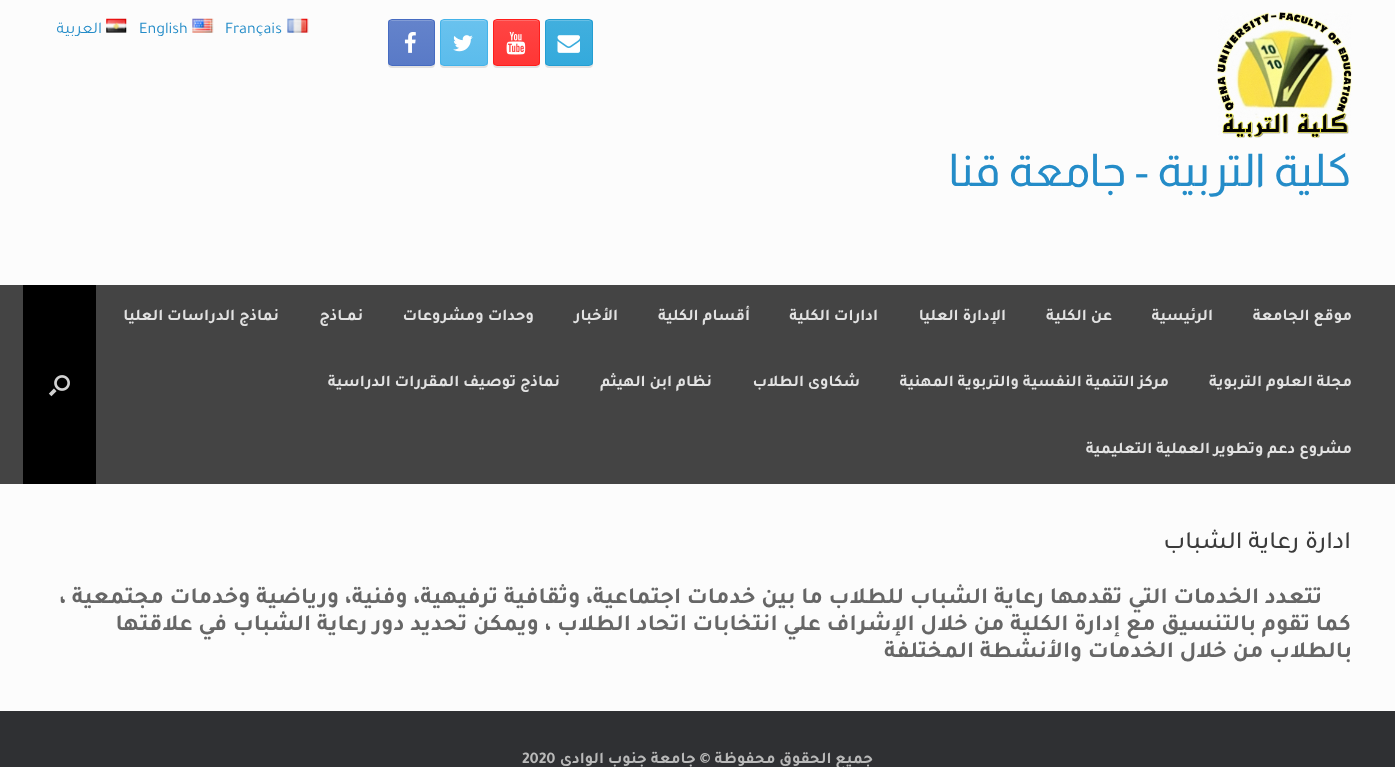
<svg xmlns="http://www.w3.org/2000/svg" width="1395" height="767" viewBox="0 0 1395 767">
  <defs>
    <filter id="blur1" x="-50%" y="-200%" width="200%" height="500%"><feGaussianBlur stdDeviation="0.5"/></filter>
    <clipPath id="clip1"><rect x="545" y="19" width="48" height="47" rx="4"/></clipPath>
    <linearGradient id="g1" gradientUnits="userSpaceOnUse" x1="546" y1="65" x2="546" y2="20"><stop offset="0" stop-color="#34aadc"/><stop offset="1" stop-color="#41afde"/></linearGradient>
    <clipPath id="clip2"><rect x="493" y="19" width="47" height="47" rx="4"/></clipPath>
    <linearGradient id="g2" gradientUnits="userSpaceOnUse" x1="494" y1="65" x2="494" y2="20"><stop offset="0" stop-color="#ff3635"/><stop offset="1" stop-color="#ff4544"/></linearGradient>
    <clipPath id="clip3"><rect x="440" y="19" width="48" height="47" rx="4"/></clipPath>
    <linearGradient id="g3" gradientUnits="userSpaceOnUse" x1="441" y1="65" x2="441" y2="20"><stop offset="0" stop-color="#5bbcec"/><stop offset="1" stop-color="#69c2ee"/></linearGradient>
    <clipPath id="clip4"><rect x="388" y="19" width="47" height="47" rx="4"/></clipPath>
    <linearGradient id="g4" gradientUnits="userSpaceOnUse" x1="389" y1="65" x2="389" y2="20"><stop offset="0" stop-color="#597ac7"/><stop offset="1" stop-color="#6483cb"/></linearGradient>
  </defs>
  <rect width="100%" height="100%" fill="#2f3033"/>
  <rect x="0" y="0" width="1395" height="285" fill="#fcfcfc"/>
  <rect x="545" y="20" width="48" height="48" rx="4" fill="#000000" fill-opacity="0.1" filter="url(#blur1)"/>
  <g clip-path="url(#clip1)">
    <rect x="545" y="20" width="48" height="45" fill="url(#g1)"/>
  </g>
  <path d="M549 21H589C590 21 591 22 591 24C591 18 587 20 582 20H555C550 20 546 18 546 24C546 22 547 21 549 21Z" fill="#67bfe5"/>
  <rect x="545.5" y="19.5" width="47" height="46" rx="3.5" fill="none" stroke="#249ed2"/>
  <image x="557" y="35" width="23" height="18" href="img1.png"/>
  <rect x="493" y="20" width="47" height="48" rx="4" fill="#000000" fill-opacity="0.1" filter="url(#blur1)"/>
  <g clip-path="url(#clip2)">
    <rect x="493" y="20" width="47" height="45" fill="url(#g2)"/>
  </g>
  <path d="M496 21H536C538 21 539 22 539 24C539 18 535 20 530 20H503C498 20 494 18 494 24C494 22 495 21 496 21Z" fill="#ff6a69"/>
  <rect x="493.5" y="19.5" width="46" height="46" rx="3.5" fill="none" stroke="#ff1d1b"/>
  <image x="506" y="31" width="20" height="24" href="img2.png"/>
  <rect x="440" y="20" width="48" height="48" rx="4" fill="#000000" fill-opacity="0.1" filter="url(#blur1)"/>
  <g clip-path="url(#clip3)">
    <rect x="440" y="20" width="48" height="45" fill="url(#g3)"/>
  </g>
  <path d="M444 21H484C485 21 486 22 486 24C486 18 482 20 477 20H450C445 20 441 18 441 24C441 22 442 21 444 21Z" fill="#8fd1f2"/>
  <rect x="440.5" y="19.5" width="47" height="46" rx="3.5" fill="none" stroke="#44b3e9"/>
  <image x="453" y="35" width="20" height="17" href="img3.png"/>
  <rect x="388" y="20" width="47" height="48" rx="4" fill="#000000" fill-opacity="0.1" filter="url(#blur1)"/>
  <g clip-path="url(#clip4)">
    <rect x="388" y="20" width="47" height="45" fill="url(#g4)"/>
  </g>
  <path d="M391 21H431C433 21 434 22 434 24C434 18 430 20 425 20H398C393 20 389 18 389 24C389 22 390 21 391 21Z" fill="#839cd5"/>
  <rect x="388.5" y="19.5" width="46" height="46" rx="3.5" fill="none" stroke="#466bc1"/>
  <image x="404" y="32" width="12" height="21" href="img4.png"/>
  <image x="287" y="18" width="22" height="15" href="img5.png"/>
  <text x="225" y="33" font-family="Tajawal" font-size="16.25" fill="#248cc8">Français</text>
  <image x="192" y="18" width="22" height="15" href="img6.png"/>
  <text x="139" y="33" font-family="Tajawal" font-size="16.25" fill="#248cc8">English</text>
  <image x="106" y="18" width="21" height="15" href="img7.png"/>
  <text x="102" y="33" font-family="Tajawal" font-size="16.25" direction="rtl" fill="#248cc8">العربية</text>
  <image x="1217" y="12" width="135" height="126" href="img8.png"/>
  <text x="1351" y="186" font-family="Almarai" font-size="45" direction="rtl" fill="#248cc8">كلية التربية - جامعة قنا</text>
  <rect x="0" y="285" width="1395" height="199" fill="#444444"/>
  <text x="1352" y="320" font-family="Tajawal" font-size="16.25" font-weight="bold" direction="rtl" fill="#e2e2e2">موقع الجامعة</text>
  <text x="1213" y="320" font-family="Tajawal" font-size="16.25" font-weight="bold" direction="rtl" fill="#e2e2e2">الرئيسية</text>
  <text x="1112" y="320" font-family="Tajawal" font-size="16.25" font-weight="bold" direction="rtl" fill="#e2e2e2">عن الكلية</text>
  <text x="1006" y="320" font-family="Tajawal" font-size="16.25" font-weight="bold" direction="rtl" fill="#e2e2e2">الإدارة العليا</text>
  <text x="878" y="320" font-family="Tajawal" font-size="16.25" font-weight="bold" direction="rtl" fill="#e2e2e2">ادارات الكلية</text>
  <text x="750" y="320" font-family="Tajawal" font-size="16.25" font-weight="bold" direction="rtl" fill="#e2e2e2">أقسام الكلية</text>
  <text x="618" y="320" font-family="Tajawal" font-size="16.25" font-weight="bold" direction="rtl" fill="#e2e2e2">الأخبار</text>
  <text x="534" y="320" font-family="Tajawal" font-size="16.25" font-weight="bold" direction="rtl" fill="#e2e2e2">وحدات ومشروعات</text>
  <text x="363" y="320" font-family="Tajawal" font-size="16.25" font-weight="bold" direction="rtl" fill="#e2e2e2">نمــاذج</text>
  <text x="279" y="320" font-family="Tajawal" font-size="16.25" font-weight="bold" direction="rtl" fill="#e2e2e2">نماذج الدراسات العليا</text>
  <text x="1352" y="386" font-family="Tajawal" font-size="16.25" font-weight="bold" direction="rtl" fill="#e2e2e2">مجلة العلوم التربوية</text>
  <text x="1169" y="386" font-family="Tajawal" font-size="16.25" font-weight="bold" direction="rtl" fill="#e2e2e2">مركز التنمية النفسية والتربوية المهنية</text>
  <text x="860" y="386" font-family="Tajawal" font-size="16.25" font-weight="bold" direction="rtl" fill="#e2e2e2">شكاوى الطلاب</text>
  <text x="712" y="386" font-family="Tajawal" font-size="16.25" font-weight="bold" direction="rtl" fill="#e2e2e2">نظام ابن الهيثم</text>
  <text x="560" y="386" font-family="Tajawal" font-size="16.25" font-weight="bold" direction="rtl" fill="#e2e2e2">نماذج توصيف المقررات الدراسية</text>
  <text x="1352" y="453" font-family="Tajawal" font-size="16.25" font-weight="bold" direction="rtl" fill="#e2e2e2">مشروع دعم وتطوير العملية التعليمية</text>
  <rect x="23" y="285" width="73" height="199" fill="#000000"/>
  <image x="48" y="375" width="22" height="22" href="img9.png"/>
  <rect x="0" y="484" width="1395" height="227" fill="#fcfcfc"/>
  <text x="1351" y="548" font-family="Tajawal" font-size="25" font-weight="500" direction="rtl" fill="#3b3b3b">ادارة رعاية الشباب</text>
  <text x="1322" y="603" font-family="Tajawal" font-size="23.33" font-weight="bold" direction="rtl" fill="#666666">تتعدد الخدمات التي تقدمها رعاية الشباب للطلاب ما بين خدمات اجتماعية، وثقافية ترفيهية، وفنية، ورياضية وخدمات مجتمعية ،</text>
  <text x="1351" y="630" font-family="Tajawal" font-size="23.33" font-weight="bold" direction="rtl" fill="#666666">كما تقوم بالتنسيق مع إدارة الكلية من خلال الإشراف علي انتخابات اتحاد الطلاب ، ويمكن تحديد دور رعاية الشباب في علاقتها</text>
  <text x="1352" y="657" font-family="Tajawal" font-size="23.33" font-weight="bold" direction="rtl" fill="#666666">بالطلاب من خلال الخدمات والأنشطة المختلفة</text>
  <text x="873" y="763" font-family="Tajawal" font-size="16.25" font-weight="bold" direction="rtl" fill="#b9b9b9">جميع الحقوق محفوظة © جامعة جنوب الوادى</text>
  <text x="522" y="763" font-family="Tajawal" font-size="16.25" font-weight="bold" fill="#b9b9b9">2020</text>
</svg>
